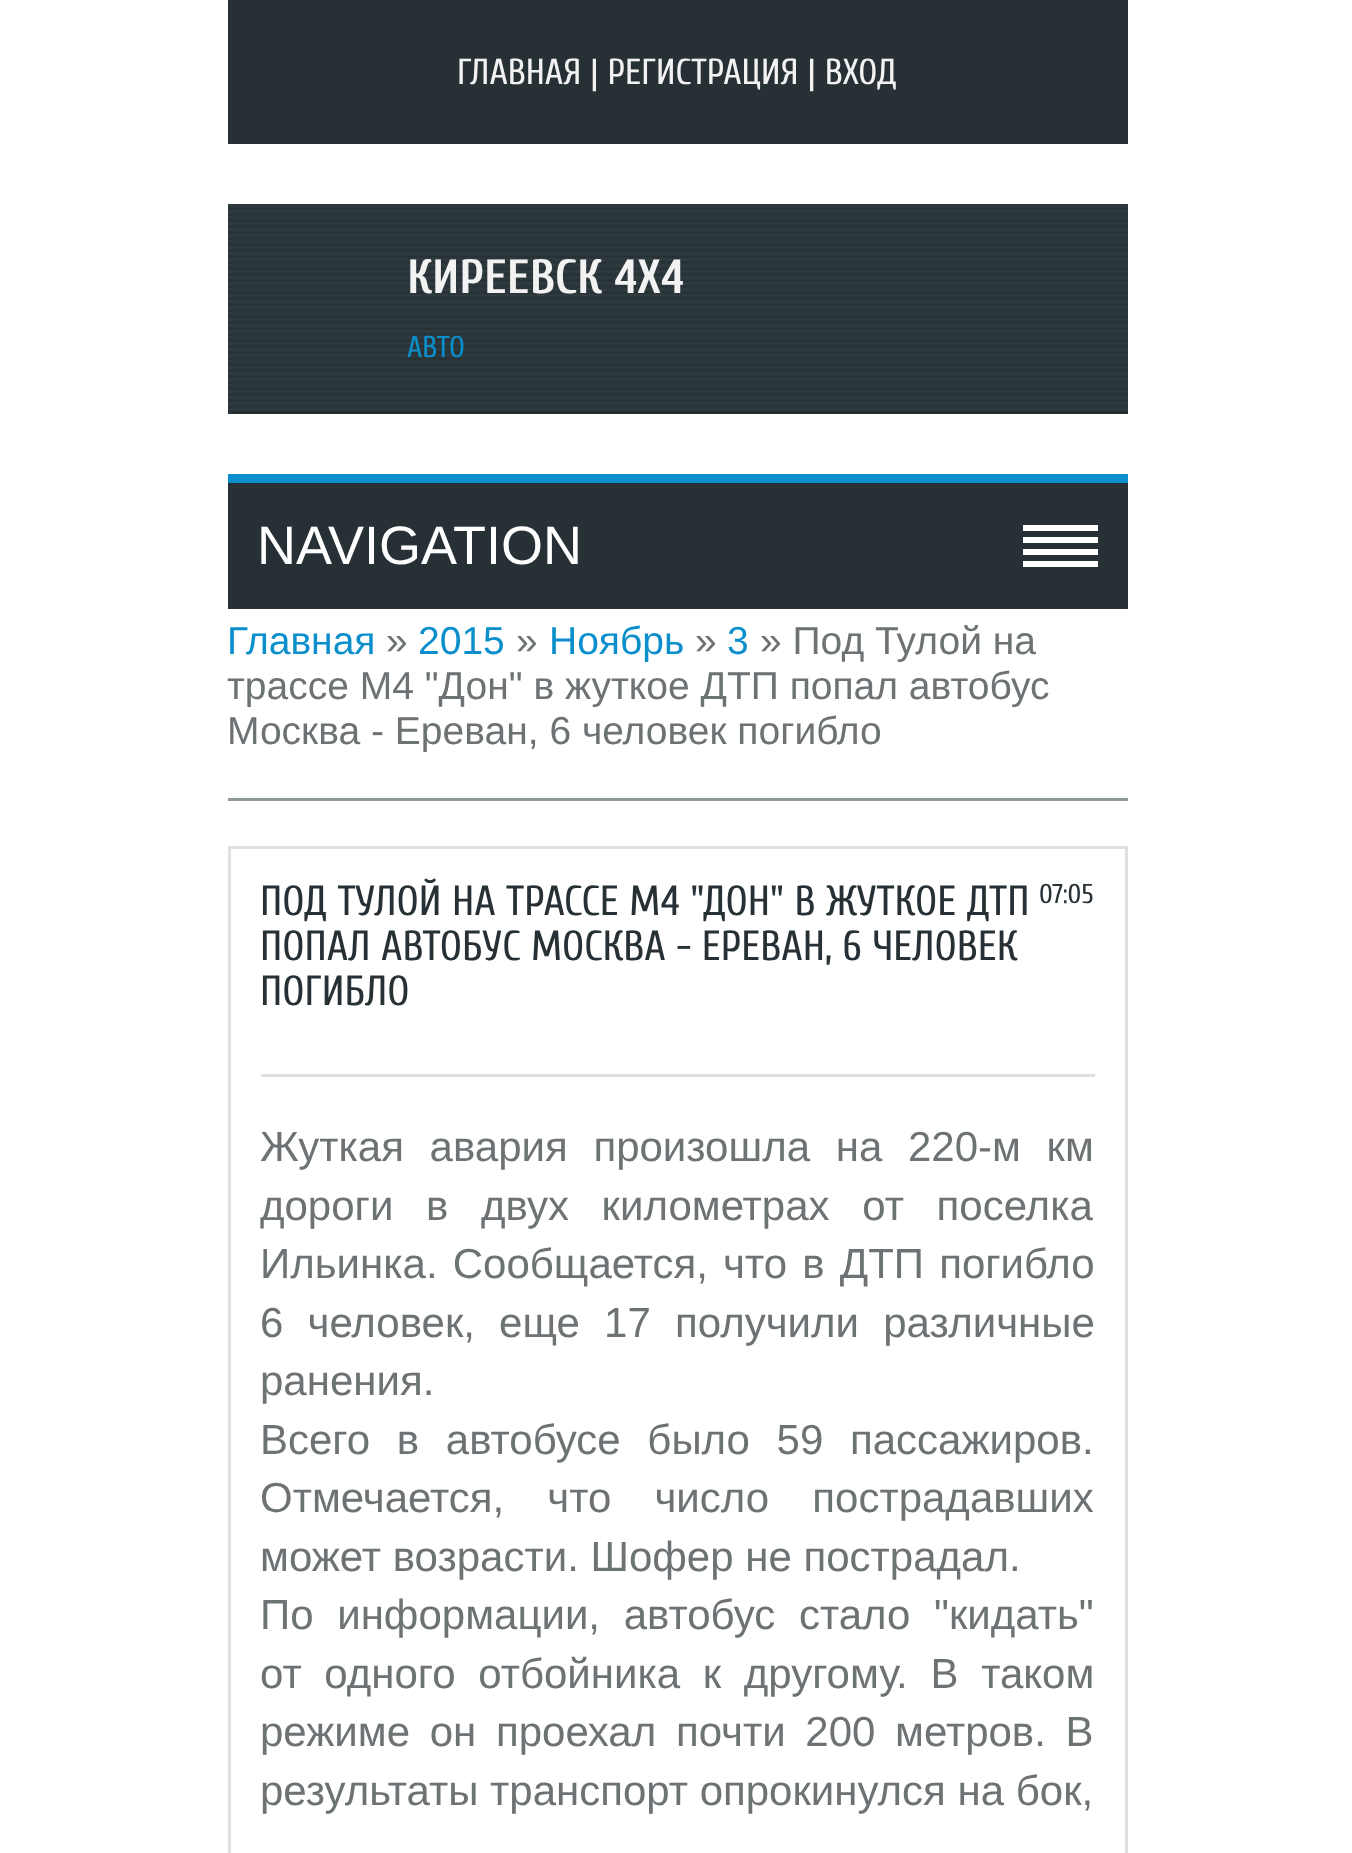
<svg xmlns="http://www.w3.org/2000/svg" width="1352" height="1853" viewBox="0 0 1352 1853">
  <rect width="100%" height="100%" fill="#ffffff"/>
  <rect x="228" y="0" width="900" height="144" fill="#273135"/>
  <text x="457" y="84" font-family="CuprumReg" font-size="36" fill="#f2f2f2">ГЛАВНАЯ | РЕГИСТРАЦИЯ | ВХОД</text>
  <rect x="228" y="411" width="900" height="3" fill="#273135"/>
  <image x="228" y="204" width="900" height="207" href="img1.png"/>
  <text x="407" y="293" font-family="Cuprum" font-size="48" font-weight="bold" fill="#f2f2f2">КИРЕЕВСК 4X4</text>
  <text x="407" y="357" font-family="CuprumReg" font-size="30" fill="#0a8fcc">АВТО</text>
  <rect x="228" y="483" width="900" height="126" fill="#273135"/>
  <rect x="228" y="474" width="900" height="9" fill="#0a8fcc"/>
  <text x="257" y="564" font-family="Liberation Sans" font-size="54" fill="#ffffff">NAVIGATION</text>
  <rect x="1023" y="525" width="75" height="6" fill="#ffffff"/>
  <rect x="1023" y="537" width="75" height="6" fill="#ffffff"/>
  <rect x="1023" y="549" width="75" height="6" fill="#ffffff"/>
  <rect x="1023" y="561" width="75" height="6" fill="#ffffff"/>
  <text x="227" y="654" font-family="Liberation Sans" font-size="39" fill="#0a8fcc">Главная</text>
  <text x="386" y="654" font-family="Liberation Sans" font-size="39" fill="#6d7274">»</text>
  <text x="418" y="654" font-family="Liberation Sans" font-size="39" fill="#0a8fcc">2015</text>
  <text x="516" y="654" font-family="Liberation Sans" font-size="39" fill="#6d7274">»</text>
  <text x="549" y="654" font-family="Liberation Sans" font-size="39" fill="#0a8fcc">Ноябрь</text>
  <text x="695" y="654" font-family="Liberation Sans" font-size="39" fill="#6d7274">»</text>
  <text x="727" y="654" font-family="Liberation Sans" font-size="39" fill="#0a8fcc">3</text>
  <text x="760" y="654" font-family="Liberation Sans" font-size="39" fill="#6d7274">» Под Тулой на</text>
  <text x="227" y="699" font-family="Liberation Sans" font-size="39" fill="#6d7274">трассе М4 "Дон" в жуткое ДТП попал автобус</text>
  <text x="227" y="744" font-family="Liberation Sans" font-size="39" fill="#6d7274">Москва - Ереван, 6 человек погибло</text>
  <rect x="228" y="798" width="900" height="3" fill="#8e989b"/>
  <rect x="229.5" y="847.5" width="897" height="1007" fill="none" stroke="#dee1e2" stroke-width="3"/>
  <rect x="261" y="1074" width="834" height="3" fill="#dee1e2"/>
  <text x="260" y="915" font-family="CuprumReg" font-size="42" fill="#273135">ПОД ТУЛОЙ НА ТРАССЕ М4 "ДОН" В ЖУТКОЕ ДТП</text>
  <text x="1039" y="903" font-family="CuprumReg" font-size="27" fill="#273135">07:05</text>
  <text x="260" y="960" font-family="CuprumReg" font-size="42" fill="#273135">ПОПАЛ АВТОБУС МОСКВА - ЕРЕВАН, 6 ЧЕЛОВЕК</text>
  <text x="260" y="1005" font-family="CuprumReg" font-size="42" fill="#273135">ПОГИБЛО</text>
  <text x="260" y="1161" word-spacing="14" font-family="Liberation Sans" font-size="42" fill="#6d7274">Жуткая авария произошла на 220-м км</text>
  <text x="260" y="1220" word-spacing="21" font-family="Liberation Sans" font-size="42" fill="#6d7274">дороги в двух километрах от поселка</text>
  <text x="260" y="1278" word-spacing="3.5" font-family="Liberation Sans" font-size="42" fill="#6d7274">Ильинка. Сообщается, что в ДТП погибло</text>
  <text x="260" y="1337" word-spacing="12.5" font-family="Liberation Sans" font-size="42" fill="#6d7274">6 человек, еще 17 получили различные</text>
  <text x="260" y="1395" font-family="Liberation Sans" font-size="42" fill="#6d7274">ранения.</text>
  <text x="260" y="1454" word-spacing="15" font-family="Liberation Sans" font-size="42" fill="#6d7274">Всего в автобусе было 59 пассажиров.</text>
  <text x="260" y="1512" word-spacing="31.5" font-family="Liberation Sans" font-size="42" fill="#6d7274">Отмечается, что число пострадавших</text>
  <text x="260" y="1571" font-family="Liberation Sans" font-size="42" fill="#6d7274">может возрасти. Шофер не пострадал.</text>
  <text x="260" y="1629" word-spacing="12" font-family="Liberation Sans" font-size="42" fill="#6d7274">По информации, автобус стало "кидать"</text>
  <text x="260" y="1688" word-spacing="11" font-family="Liberation Sans" font-size="42" fill="#6d7274">от одного отбойника к другому. В таком</text>
  <text x="260" y="1746" word-spacing="8" font-family="Liberation Sans" font-size="42" fill="#6d7274">режиме он проехал почти 200 метров. В</text>
  <text x="260" y="1805" font-family="Liberation Sans" font-size="42" fill="#6d7274">результаты транспорт опрокинулся на бок,</text>
</svg>
